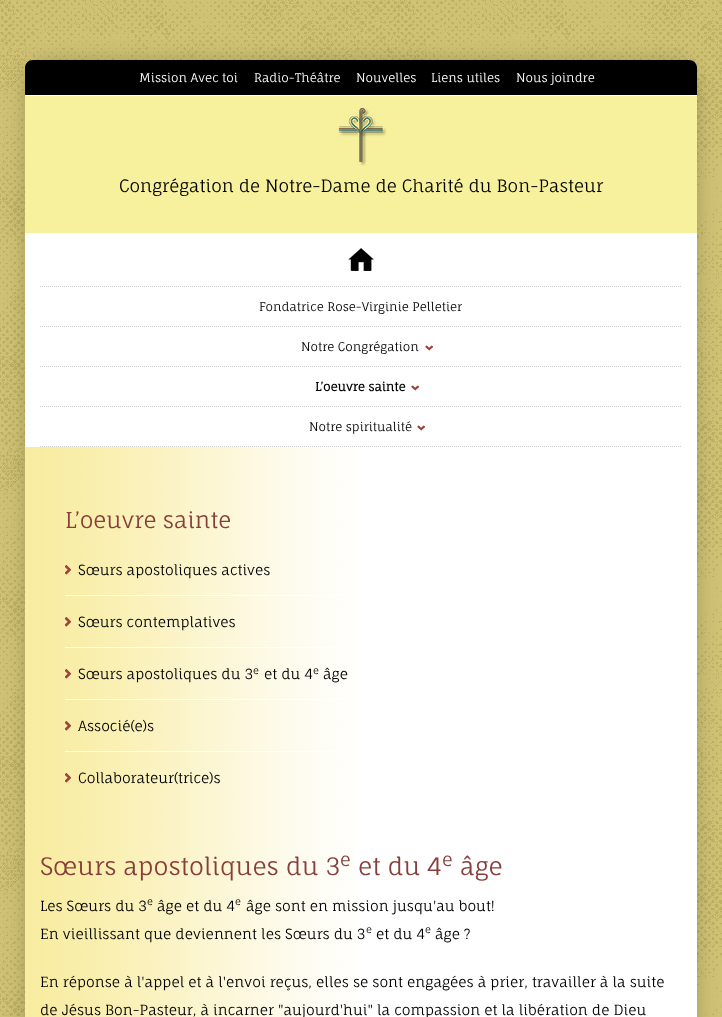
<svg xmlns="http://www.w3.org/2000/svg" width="722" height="1017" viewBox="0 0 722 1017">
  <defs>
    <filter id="blur1" x="-50%" y="-200%" width="200%" height="500%"><feGaussianBlur stdDeviation="10"/></filter>
  </defs>
  <rect width="100%" height="100%" fill="#ffffff"/>
  <image x="0" y="0" width="722" height="1017" href="img1.png"/>
  <rect x="25" y="60" width="672" height="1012" rx="25" fill="#000000" fill-opacity="0.2" filter="url(#blur1)"/>
  <path d="M33 60H689C693.5 60 697 63.5 697 68V95H25V68C25 63.5 28.5 60 33 60Z" fill="#000000"/>
  <text x="139" y="82" font-family="Fauna One" font-size="12" fill="#ffffff">Mission Avec toi</text>
  <text x="254" y="82" font-family="Fauna One" font-size="12" fill="#ffffff">Radio-Théâtre</text>
  <text x="356" y="82" font-family="Fauna One" font-size="12" fill="#ffffff">Nouvelles</text>
  <text x="431" y="82" font-family="Fauna One" font-size="12" fill="#ffffff">Liens utiles</text>
  <text x="516" y="82" font-family="Fauna One" font-size="12" fill="#ffffff">Nous joindre</text>
  <rect x="25" y="233" width="672" height="214" fill="#ffffff"/>
  <rect x="25" y="96" width="672" height="137" fill="#f7f09c"/>
  <image x="338" y="107" width="49" height="59" href="img2.png"/>
  <text x="119" y="192" font-family="Fauna One" font-size="17" fill="#000000">Congrégation de Notre-Dame de Charité du Bon-Pasteur</text>
  <rect x="25" y="95" width="672" height="1" fill="#ffffff"/>
  <path d="M40 286.5H682" fill="none" stroke="#cccccc" stroke-dasharray="1 1"/>
  <image x="348" y="248" width="26" height="23" href="img3.png"/>
  <path d="M40 326.5H682" fill="none" stroke="#cccccc" stroke-dasharray="1 1"/>
  <text x="259" y="311" font-family="Fauna One" font-size="12" fill="#000000">Fondatrice Rose-Virginie Pelletier</text>
  <path d="M40 366.5H682" fill="none" stroke="#cccccc" stroke-dasharray="1 1"/>
  <text x="301" y="351" font-family="Fauna One" font-size="12" fill="#000000">Notre Congrégation</text>
  <image x="425" y="345" width="8" height="6" href="img4.png"/>
  <path d="M40 406.5H682" fill="none" stroke="#cccccc" stroke-dasharray="1 1"/>
  <text x="315" y="391" font-family="Fauna One" font-size="12" font-weight="bold" fill="#000000">L’oeuvre sainte</text>
  <image x="411" y="385" width="8" height="6" href="img4.png"/>
  <path d="M40 446.5H682" fill="none" stroke="#cccccc" stroke-dasharray="1 1"/>
  <text x="309" y="431" font-family="Fauna One" font-size="12" fill="#000000">Notre spiritualité</text>
  <image x="417" y="425" width="8" height="6" href="img4.png"/>
  <rect x="355" y="447" width="342" height="570" fill="#ffffff"/>
  <image x="25" y="828" width="330" height="189" href="img5.png"/>
  <image x="25" y="447" width="330" height="381" href="img6.png"/>
  <text x="65" y="528" font-family="Fauna One" font-size="22" fill="#873d39">L’oeuvre sainte</text>
  <rect x="65" y="595" width="290" height="1" fill="#ffffff"/>
  <image x="65" y="565" width="6" height="10" href="img7.png"/>
  <text x="78" y="575" font-family="Fauna One" font-size="14" fill="#000000">Sœurs apostoliques actives</text>
  <rect x="65" y="647" width="290" height="1" fill="#ffffff"/>
  <image x="65" y="617" width="6" height="10" href="img8.png"/>
  <text x="78" y="627" font-family="Fauna One" font-size="14" fill="#000000">Sœurs contemplatives</text>
  <rect x="65" y="699" width="290" height="1" fill="#ffffff"/>
  <image x="65" y="669" width="6" height="10" href="img9.png"/>
  <text x="78" y="679" font-family="Fauna One" font-size="14" fill="#000000">Sœurs apostoliques du 3</text>
  <text x="253" y="674" font-family="Fauna One" font-size="10" fill="#000000">e</text>
  <text x="264" y="679" font-family="Fauna One" font-size="14" fill="#000000">et du 4</text>
  <text x="313" y="674" font-family="Fauna One" font-size="10" fill="#000000">e</text>
  <text x="323" y="679" font-family="Fauna One" font-size="14" fill="#000000">âge</text>
  <rect x="65" y="751" width="290" height="1" fill="#ffffff"/>
  <image x="65" y="721" width="6" height="10" href="img10.png"/>
  <text x="78" y="731" font-family="Fauna One" font-size="14" fill="#000000">Associé(e)s</text>
  <image x="65" y="773" width="6" height="10" href="img11.png"/>
  <text x="78" y="783" font-family="Fauna One" font-size="14" fill="#000000">Collaborateur(trice)s</text>
  <text x="40" y="875" font-family="Fauna One" font-size="24" fill="#873d39">Sœurs apostoliques du 3</text>
  <text x="340" y="866" font-family="Fauna One" font-size="18" fill="#873d39">e</text>
  <text x="358" y="875" font-family="Fauna One" font-size="24" fill="#873d39">et du 4</text>
  <text x="442" y="866" font-family="Fauna One" font-size="18" fill="#873d39">e</text>
  <text x="460" y="875" font-family="Fauna One" font-size="24" fill="#873d39">âge</text>
  <text x="40" y="911" font-family="Fauna One" font-size="14" fill="#000000">Les Sœurs du 3</text>
  <text x="147" y="905" font-family="Fauna One" font-size="10" fill="#000000">e</text>
  <text x="157" y="911" font-family="Fauna One" font-size="14" fill="#000000">âge et du 4</text>
  <text x="235" y="905" font-family="Fauna One" font-size="10" fill="#000000">e</text>
  <text x="246" y="911" font-family="Fauna One" font-size="14" fill="#000000">âge sont en mission jusqu'au bout!</text>
  <text x="40" y="939" font-family="Fauna One" font-size="14" fill="#000000">En vieillissant que deviennent les Sœurs du 3</text>
  <text x="366" y="933" font-family="Fauna One" font-size="10" fill="#000000">e</text>
  <text x="376" y="939" font-family="Fauna One" font-size="14" fill="#000000">et du 4</text>
  <text x="425" y="933" font-family="Fauna One" font-size="10" fill="#000000">e</text>
  <text x="435" y="939" font-family="Fauna One" font-size="14" fill="#000000">âge ?</text>
  <text x="40" y="987" font-family="Fauna One" font-size="14" fill="#000000">En réponse à l'appel et à l'envoi reçus, elles se sont engagées à prier, travailler à la suite</text>
  <text x="40" y="1015" font-family="Fauna One" font-size="14" fill="#000000">de Jésus Bon-Pasteur, à incarner "aujourd'hui" la compassion et la libération de Dieu</text>
</svg>
